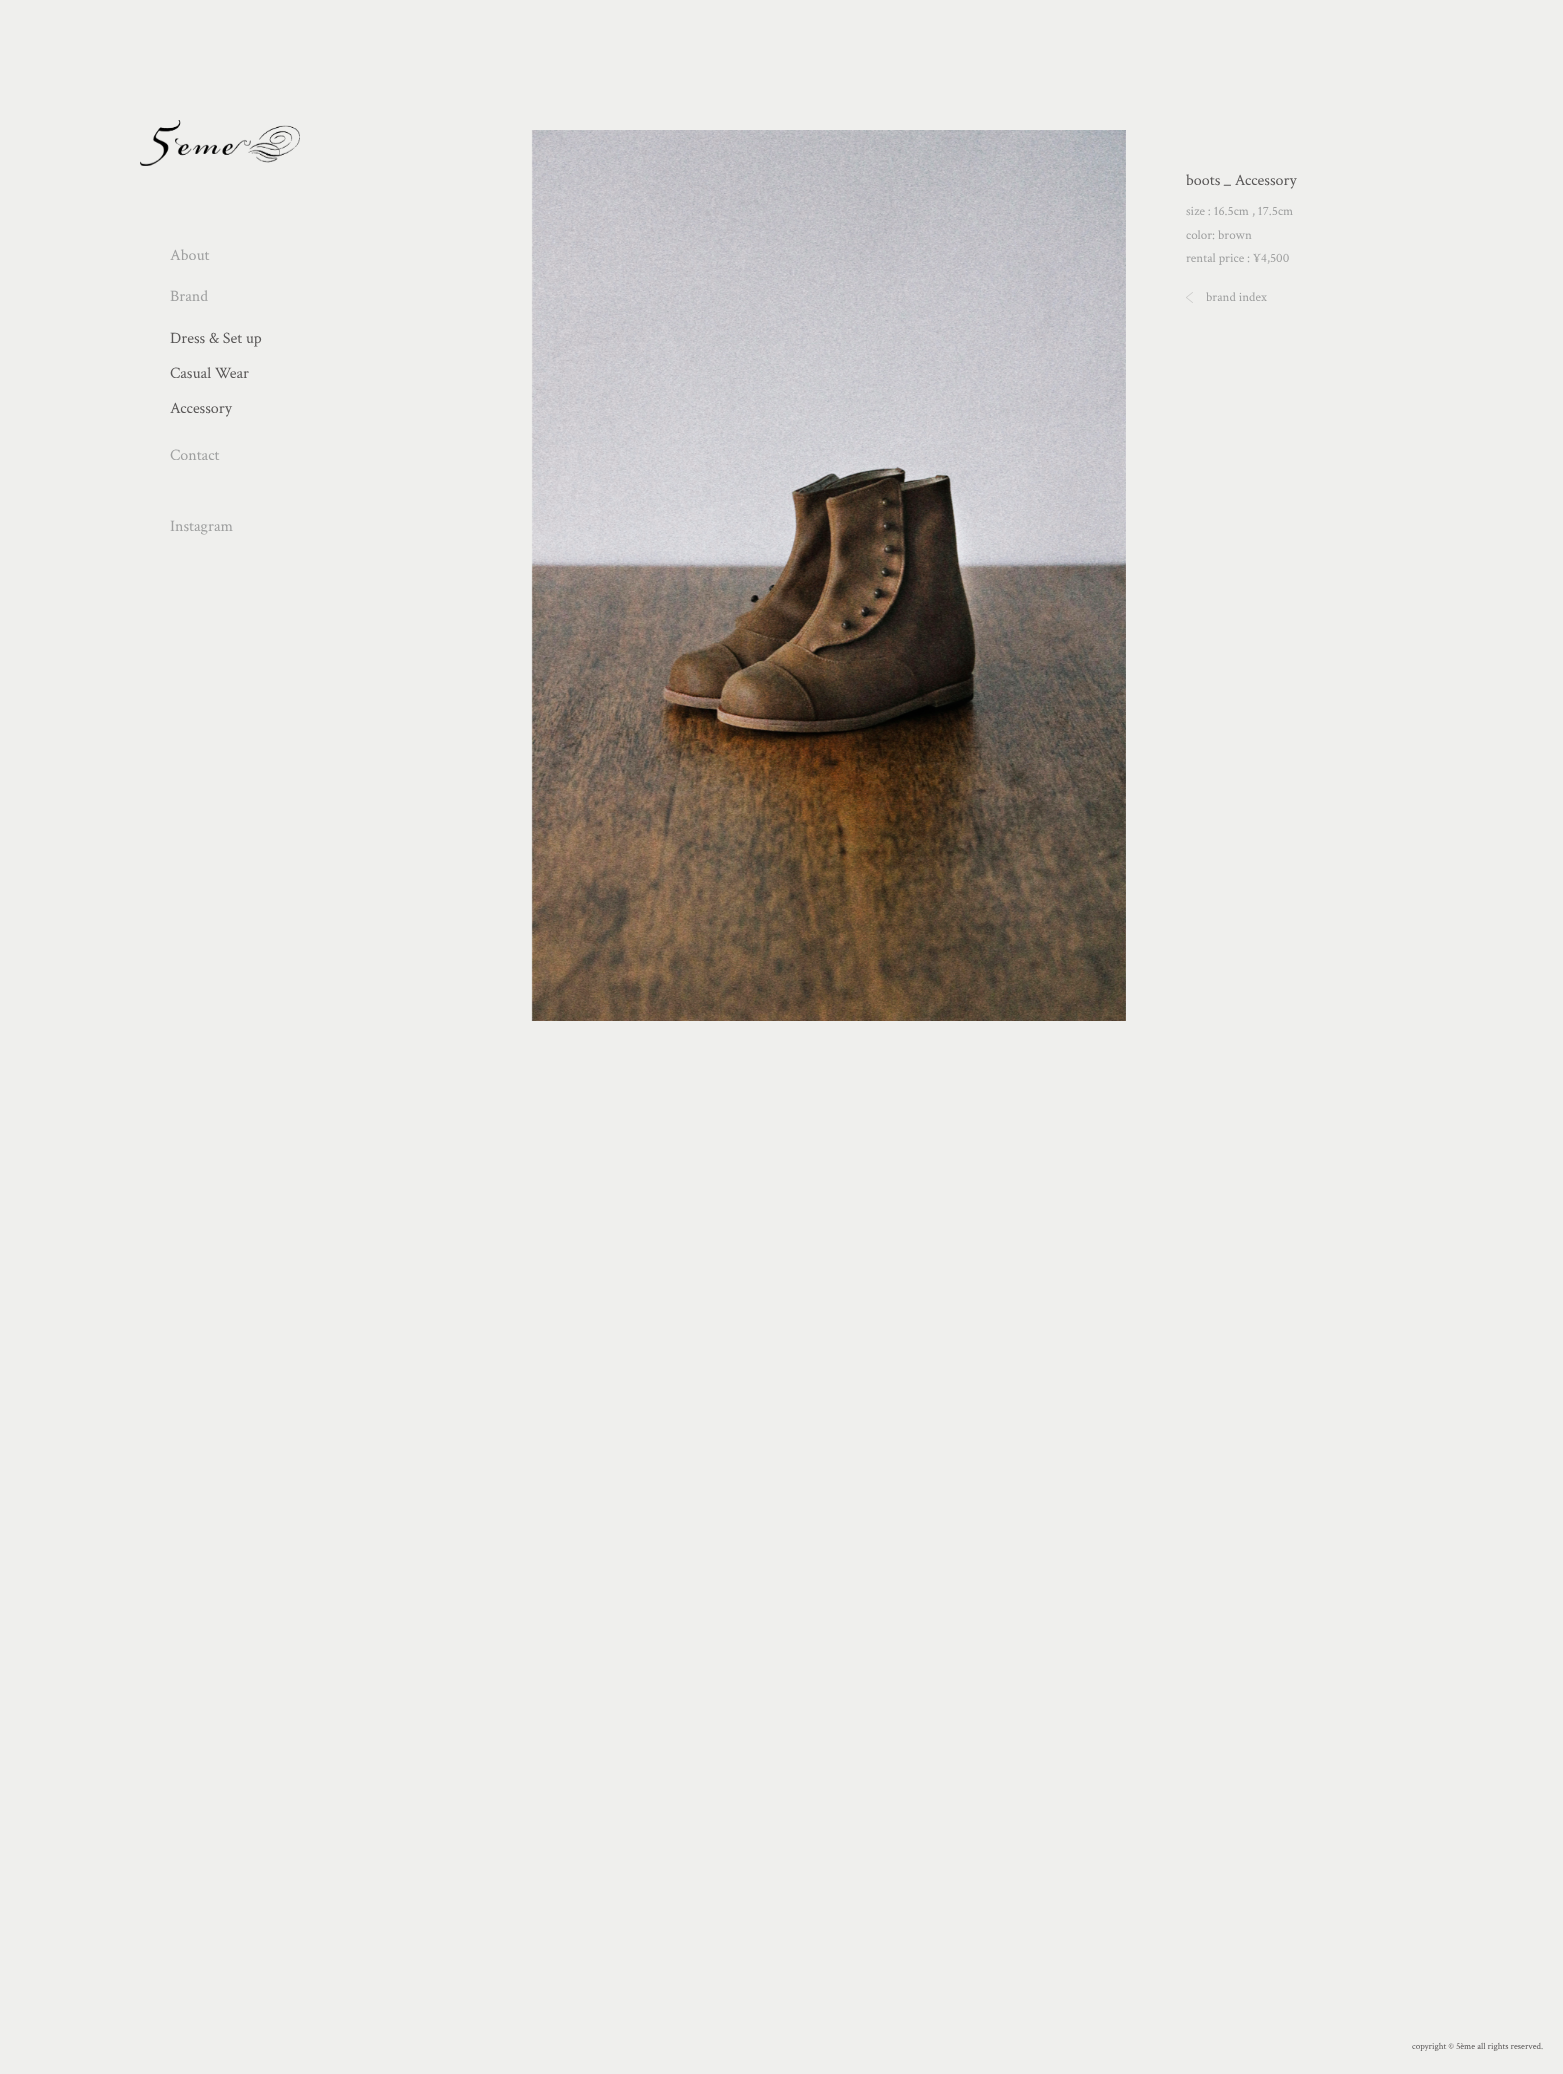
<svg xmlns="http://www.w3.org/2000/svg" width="1563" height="2074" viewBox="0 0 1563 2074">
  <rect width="100%" height="100%" fill="#efefed"/>
  <image x="140" y="120" width="160" height="46" href="img1.png"/>
  <text x="170" y="260" font-family="Crimson Text" font-size="16" fill="#9fa0a0">About</text>
  <text x="170" y="301" font-family="Crimson Text" font-size="16" fill="#9fa0a0">Brand</text>
  <text x="170" y="343" font-family="Crimson Text" font-size="16" fill="#595757">Dress &amp; Set up</text>
  <text x="170" y="378" font-family="Crimson Text" font-size="16" fill="#595757">Casual Wear</text>
  <text x="170" y="413" font-family="Crimson Text" font-size="16" fill="#595757">Accessory</text>
  <text x="170" y="460" font-family="Crimson Text" font-size="16" fill="#9fa0a0">Contact</text>
  <text x="170" y="531" font-family="Crimson Text" font-size="16" fill="#9fa0a0">Instagram</text>
  <image x="531" y="130" width="595" height="891" href="img2.png"/>
  <text x="1186" y="185" font-family="Crimson Text" font-size="16" fill="#595757">boots _ Accessory</text>
  <text x="1186" y="215" font-family="Crimson Text" font-size="13" fill="#9fa0a0">size : 16.5cm , 17.5cm</text>
  <text x="1186" y="239" font-family="Crimson Text" font-size="13" fill="#9fa0a0">color: brown</text>
  <text x="1186" y="262" font-family="Crimson Text" font-size="13" fill="#9fa0a0">rental price : ¥4,500</text>
  <image x="1186" y="292" width="7" height="11" href="img3.png"/>
  <text x="1206" y="301" font-family="Crimson Text" font-size="13" fill="#9fa0a0">brand index</text>
  <text x="1412" y="2049" font-family="Crimson Text" font-size="9.2" fill="#595757">copyright © 5ème all rights reserved.</text>
</svg>
